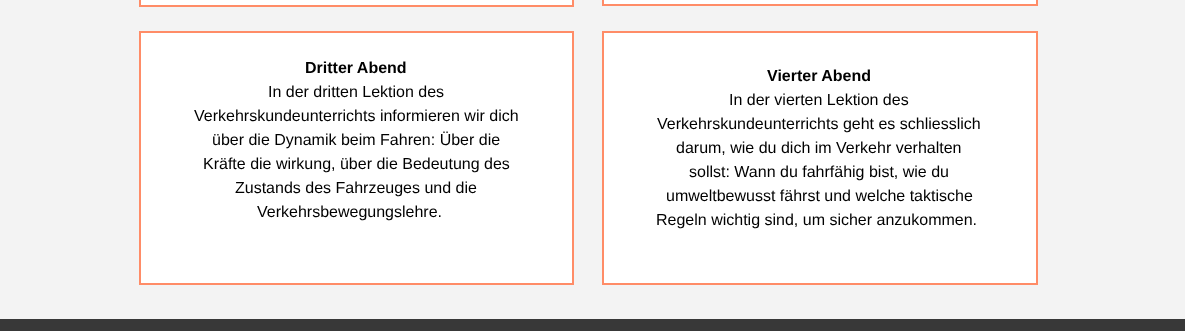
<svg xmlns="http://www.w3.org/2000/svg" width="1185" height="331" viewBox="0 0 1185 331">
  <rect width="100%" height="100%" fill="#f3f3f3"/>
  <rect x="140" y="-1" width="433" height="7" fill="#ffffff" stroke="#ff8c67" stroke-width="2"/>
  <rect x="603" y="-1" width="434" height="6" fill="#ffffff" stroke="#ff8c67" stroke-width="2"/>
  <rect x="140" y="32" width="433" height="252" fill="#ffffff" stroke="#ff8c67" stroke-width="2"/>
  <text x="305" y="73" font-family="Liberation Sans" font-size="16" font-weight="bold" fill="#000000">Dritter Abend</text>
  <text x="268" y="97" font-family="Liberation Sans" font-size="16" fill="#000000">In der dritten Lektion des</text>
  <text x="194" y="121" font-family="Liberation Sans" font-size="16" fill="#000000">Verkehrskundeunterrichts informieren wir dich</text>
  <text x="212" y="145" font-family="Liberation Sans" font-size="16" fill="#000000">über die Dynamik beim Fahren: Über die</text>
  <text x="203" y="169" font-family="Liberation Sans" font-size="16" fill="#000000">Kräfte die wirkung, über die Bedeutung des</text>
  <text x="235" y="193" font-family="Liberation Sans" font-size="16" fill="#000000">Zustands des Fahrzeuges und die</text>
  <text x="257" y="217" font-family="Liberation Sans" font-size="16" fill="#000000">Verkehrsbewegungslehre.</text>
  <rect x="603" y="32" width="434" height="252" fill="#ffffff" stroke="#ff8c67" stroke-width="2"/>
  <text x="767" y="81" font-family="Liberation Sans" font-size="16" font-weight="bold" fill="#000000">Vierter Abend</text>
  <text x="729" y="105" font-family="Liberation Sans" font-size="16" fill="#000000">In der vierten Lektion des</text>
  <text x="657" y="129" font-family="Liberation Sans" font-size="16" fill="#000000">Verkehrskundeunterrichts geht es schliesslich</text>
  <text x="676" y="153" font-family="Liberation Sans" font-size="16" fill="#000000">darum, wie du dich im Verkehr verhalten</text>
  <text x="689" y="177" font-family="Liberation Sans" font-size="16" fill="#000000">sollst: Wann du fahrfähig bist, wie du</text>
  <text x="666" y="201" font-family="Liberation Sans" font-size="16" fill="#000000">umweltbewusst fährst und welche taktische</text>
  <text x="656" y="225" font-family="Liberation Sans" font-size="16" fill="#000000">Regeln wichtig sind, um sicher anzukommen.</text>
  <rect x="0" y="319" width="1185" height="12" fill="#383838"/>
</svg>
